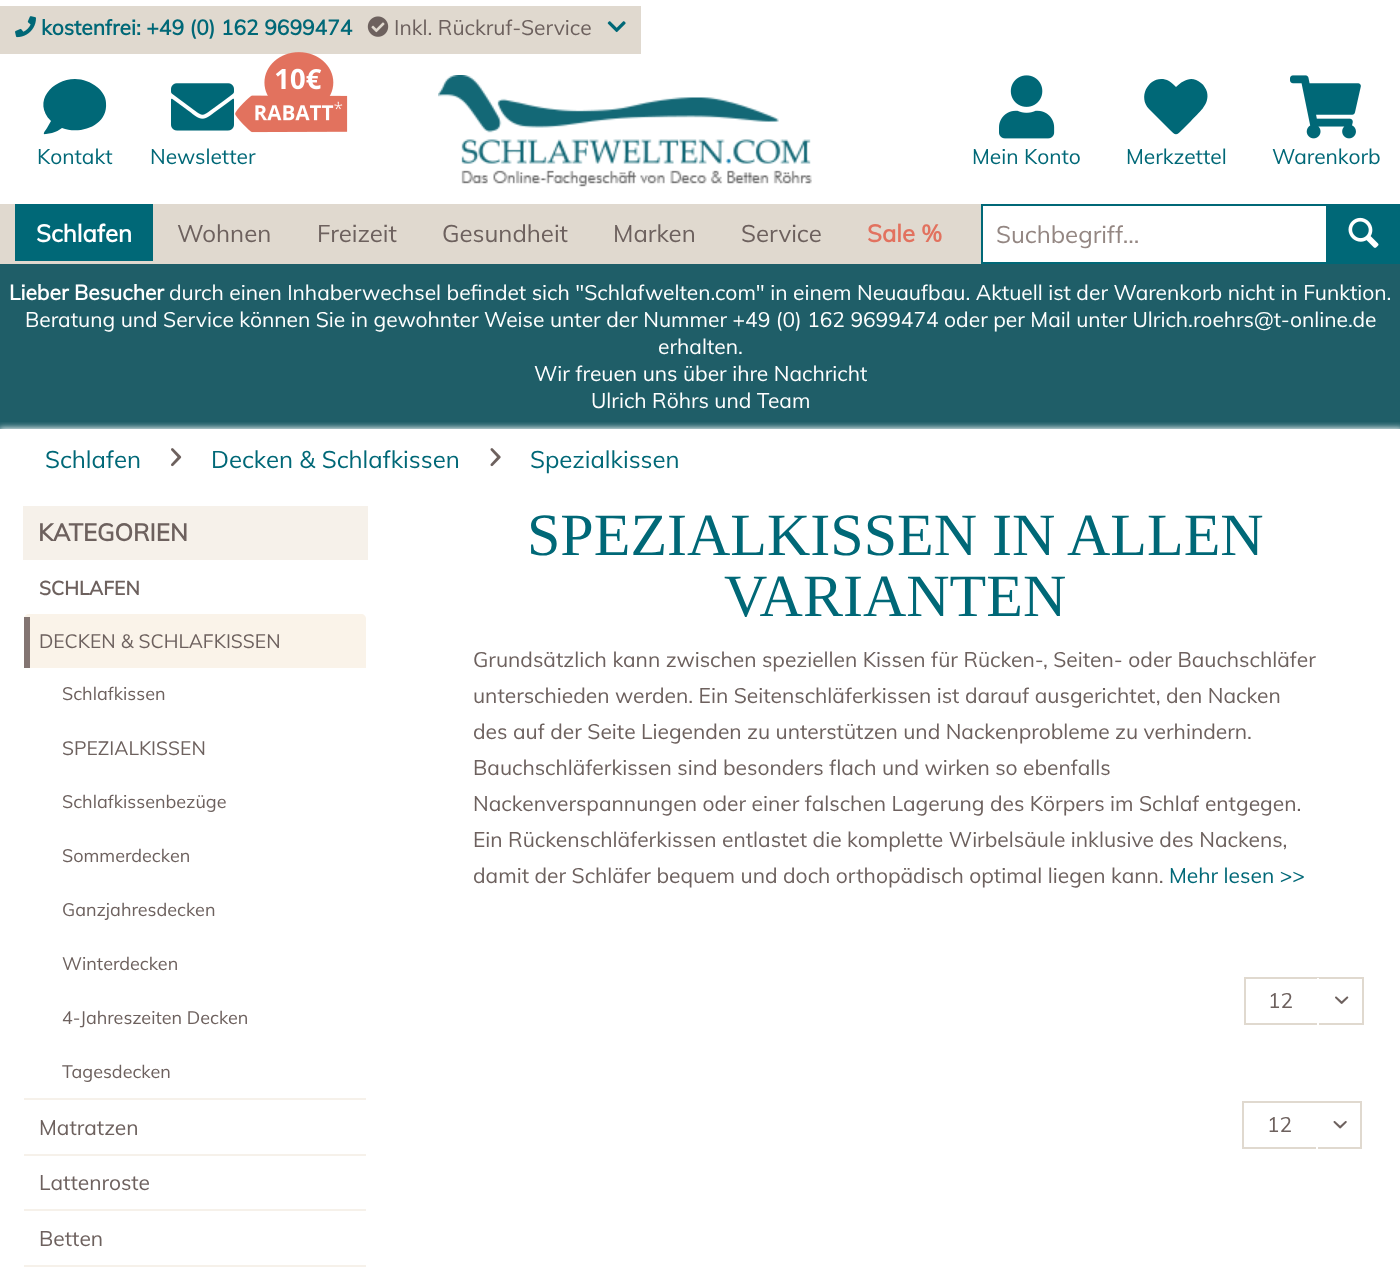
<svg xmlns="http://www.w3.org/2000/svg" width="1400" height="1271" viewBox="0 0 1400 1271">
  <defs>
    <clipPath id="clip1"><rect x="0" y="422" width="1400" height="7"/></clipPath>
    <filter id="blur1" x="-50%" y="-200%" width="200%" height="500%"><feGaussianBlur stdDeviation="3"/></filter>
  </defs>
  <rect width="100%" height="100%" fill="#ffffff"/>
  <rect x="0" y="6" width="641" height="48" fill="#e0d9cf"/>
  <image x="15" y="16" width="21" height="22" href="img1.png"/>
  <text x="41" y="35" font-family="Muli" font-size="21" font-weight="bold" fill="#006877">kostenfrei: +49 (0) 162 9699474</text>
  <image x="367" y="16" width="22" height="21" href="img2.png"/>
  <text x="394" y="35" font-family="Muli" font-size="21" fill="#6d615e">Inkl. Rückruf-Service</text>
  <image x="607" y="21" width="19" height="12" href="img3.png"/>
  <path d="M75 79C52 79 32 102 51 121L47 128C46 130 41 135 46 134L52 133C56 132 59 130 62 128C80 135 108 126 106 103C106 97 102 91 97 87C91 82 83 79 75 79Z" fill="#006877"/>
  <text x="37" y="164" font-family="Muli" font-size="21" fill="#006877">Kontakt</text>
  <image x="171" y="83" width="63" height="48" href="img4.png"/>
  <image x="235" y="52" width="113" height="81" href="img5.png"/>
  <text x="150" y="164" font-family="Muli" font-size="21" fill="#006877">Newsletter</text>
  <image x="438" y="75" width="374" height="112" href="img6.png"/>
  <image x="999" y="75" width="56" height="64" href="img7.png"/>
  <text x="972" y="164" font-family="Muli" font-size="21" fill="#006877">Mein Konto</text>
  <text x="1126" y="164" font-family="Muli" font-size="21" fill="#006877">Merkzettel</text>
  <path d="M1201 83C1192 75 1183 80 1176 87C1174 85 1172 83 1169 81C1152 72 1136 95 1149 109L1169 129C1176 136 1176 136 1183 129L1191 121C1198 113 1210 105 1207 92C1206 89 1204 85 1201 83Z" fill="#006877"/>
  <image x="1290" y="75" width="71" height="64" href="img8.png"/>
  <text x="1272" y="164" font-family="Muli" font-size="21" fill="#006877">Warenkorb</text>
  <rect x="0" y="204" width="981" height="60" fill="#e0d9cf"/>
  <rect x="15" y="204" width="138" height="57" fill="#006877"/>
  <text x="36" y="242" font-family="Muli" font-size="24" font-weight="bold" fill="#ffffff">Schlafen</text>
  <text x="177" y="242" font-family="Muli" font-size="24" fill="#6d615e">Wohnen</text>
  <text x="317" y="242" font-family="Muli" font-size="24" fill="#6d615e">Freizeit</text>
  <text x="442" y="242" font-family="Muli" font-size="24" fill="#6d615e">Gesundheit</text>
  <text x="613" y="242" font-family="Muli" font-size="24" fill="#6d615e">Marken</text>
  <text x="741" y="242" font-family="Muli" font-size="24" fill="#6d615e">Service</text>
  <text x="867" y="242" font-family="Muli" font-size="24" font-weight="bold" fill="#e2725f">Sale %</text>
  <rect x="982" y="205" width="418" height="58" fill="none" stroke="#006877" stroke-width="2"/>
  <text x="996" y="243" font-family="Muli" font-size="24" fill="#948783">Suchbegriff...</text>
  <rect x="1326" y="206" width="73" height="56" fill="#006877"/>
  <image x="1348" y="217" width="31" height="31" href="img9.png"/>
  <rect x="0" y="264" width="1400" height="165" fill="#1f5e68"/>
  <text x="9" y="300" font-family="Muli" font-size="21" font-weight="bold" fill="#ffffff">Lieber Besucher</text>
  <text x="169" y="300" font-family="Muli" font-size="21" fill="#ffffff">durch einen Inhaberwechsel befindet sich "Schlafwelten.com" in einem Neuaufbau. Aktuell ist der Warenkorb nicht in Funktion.</text>
  <text x="25" y="327" font-family="Muli" font-size="21" fill="#ffffff">Beratung und Service können Sie in gewohnter Weise unter der Nummer +49 (0) 162 9699474 oder per Mail unter Ulrich.roehrs@t-online.de</text>
  <text x="658" y="354" font-family="Muli" font-size="21" fill="#ffffff">erhalten.</text>
  <text x="534" y="381" font-family="Muli" font-size="21" fill="#ffffff">Wir freuen uns über ihre Nachricht</text>
  <text x="591" y="408" font-family="Muli" font-size="21" fill="#ffffff">Ulrich Röhrs und Team</text>
  <g clip-path="url(#clip1)">
    <rect x="-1" y="428" width="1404" height="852" fill="#ffffff" filter="url(#blur1)"/>
  </g>
  <text x="45" y="468" font-family="Muli" font-size="24" fill="#006877">Schlafen</text>
  <image x="171" y="448" width="11" height="19" href="img10.png"/>
  <text x="211" y="468" font-family="Muli" font-size="24" fill="#006877">Decken &amp; Schlafkissen</text>
  <image x="490" y="448" width="11" height="19" href="img11.png"/>
  <text x="530" y="468" font-family="Muli" font-size="24" fill="#006877">Spezialkissen</text>
  <rect x="23" y="506" width="345" height="54" fill="#f6f1ea"/>
  <text x="38" y="541" font-family="Muli" font-size="24" font-weight="bold" fill="#6d615e">KATEGORIEN</text>
  <text x="39" y="595" font-family="Muli" font-size="19.25" font-weight="bold" fill="#6d615e">SCHLAFEN</text>
  <rect x="24" y="1098" width="342" height="2" fill="#f6f1ea"/>
  <path d="M29 614H361C364 614 366 616 366 619V668H24V619C24 616 26 614 29 614Z" fill="#faf3e9"/>
  <rect x="24" y="617" width="6" height="51" fill="#837572"/>
  <text x="39" y="648" font-family="Muli" font-size="19.25" fill="#6d615e">DECKEN &amp; SCHLAFKISSEN</text>
  <text x="62" y="700" font-family="Muli" font-size="18" fill="#6d615e">Schlafkissen</text>
  <text x="62" y="755" font-family="Muli" font-size="19.25" fill="#6d615e">SPEZIALKISSEN</text>
  <text x="62" y="808" font-family="Muli" font-size="18" fill="#6d615e">Schlafkissenbezüge</text>
  <text x="62" y="862" font-family="Muli" font-size="18" fill="#6d615e">Sommerdecken</text>
  <text x="62" y="916" font-family="Muli" font-size="18" fill="#6d615e">Ganzjahresdecken</text>
  <text x="62" y="970" font-family="Muli" font-size="18" fill="#6d615e">Winterdecken</text>
  <text x="62" y="1024" font-family="Muli" font-size="18" fill="#6d615e">4-Jahreszeiten Decken</text>
  <text x="62" y="1078" font-family="Muli" font-size="18" fill="#6d615e">Tagesdecken</text>
  <rect x="24" y="1154" width="342" height="2" fill="#f6f1ea"/>
  <text x="39" y="1135" font-family="Muli" font-size="21" fill="#6d615e">Matratzen</text>
  <rect x="24" y="1209" width="342" height="2" fill="#f6f1ea"/>
  <text x="39" y="1190" font-family="Muli" font-size="21" fill="#6d615e">Lattenroste</text>
  <rect x="24" y="1265" width="342" height="2" fill="#f6f1ea"/>
  <text x="39" y="1246" font-family="Muli" font-size="21" fill="#6d615e">Betten</text>
  <text x="527" y="555" font-family="Liberation Serif" font-size="60" fill="#006877">SPEZIALKISSEN IN ALLEN</text>
  <text x="724" y="616" font-family="Liberation Serif" font-size="60" fill="#006877">VARIANTEN</text>
  <text x="473" y="667" font-family="Muli" font-size="21" fill="#6d615e">Grundsätzlich kann zwischen speziellen Kissen für Rücken-, Seiten- oder Bauchschläfer</text>
  <text x="473" y="703" font-family="Muli" font-size="21" fill="#6d615e">unterschieden werden. Ein Seitenschläferkissen ist darauf ausgerichtet, den Nacken</text>
  <text x="473" y="739" font-family="Muli" font-size="21" fill="#6d615e">des auf der Seite Liegenden zu unterstützen und Nackenprobleme zu verhindern.</text>
  <text x="473" y="775" font-family="Muli" font-size="21" fill="#6d615e">Bauchschläferkissen sind besonders flach und wirken so ebenfalls</text>
  <text x="473" y="811" font-family="Muli" font-size="21" fill="#6d615e">Nackenverspannungen oder einer falschen Lagerung des Körpers im Schlaf entgegen.</text>
  <text x="473" y="847" font-family="Muli" font-size="21" fill="#6d615e">Ein Rückenschläferkissen entlastet die komplette Wirbelsäule inklusive des Nackens,</text>
  <text x="473" y="883" font-family="Muli" font-size="21" fill="#6d615e">damit der Schläfer bequem und doch orthopädisch optimal liegen kann.</text>
  <text x="1169" y="883" font-family="Muli" font-size="21" fill="#006877">Mehr lesen &gt;&gt;</text>
  <rect x="1245" y="978" width="118" height="46" fill="none" stroke="#e0d9cf" stroke-width="2"/>
  <text x="1268" y="1008" font-family="Muli" font-size="21" fill="#6d615e">12</text>
  <rect x="1317" y="978" width="2" height="47" fill="#ffffff"/>
  <image x="1335" y="996" width="14" height="8" href="img12.png"/>
  <rect x="1243" y="1102" width="118" height="46" fill="none" stroke="#e0d9cf" stroke-width="2"/>
  <text x="1267" y="1132" font-family="Muli" font-size="21" fill="#6d615e">12</text>
  <rect x="1316" y="1147" width="2" height="2" fill="#ffffff"/>
  <image x="1333" y="1121" width="14" height="8" href="img13.png"/>
</svg>
